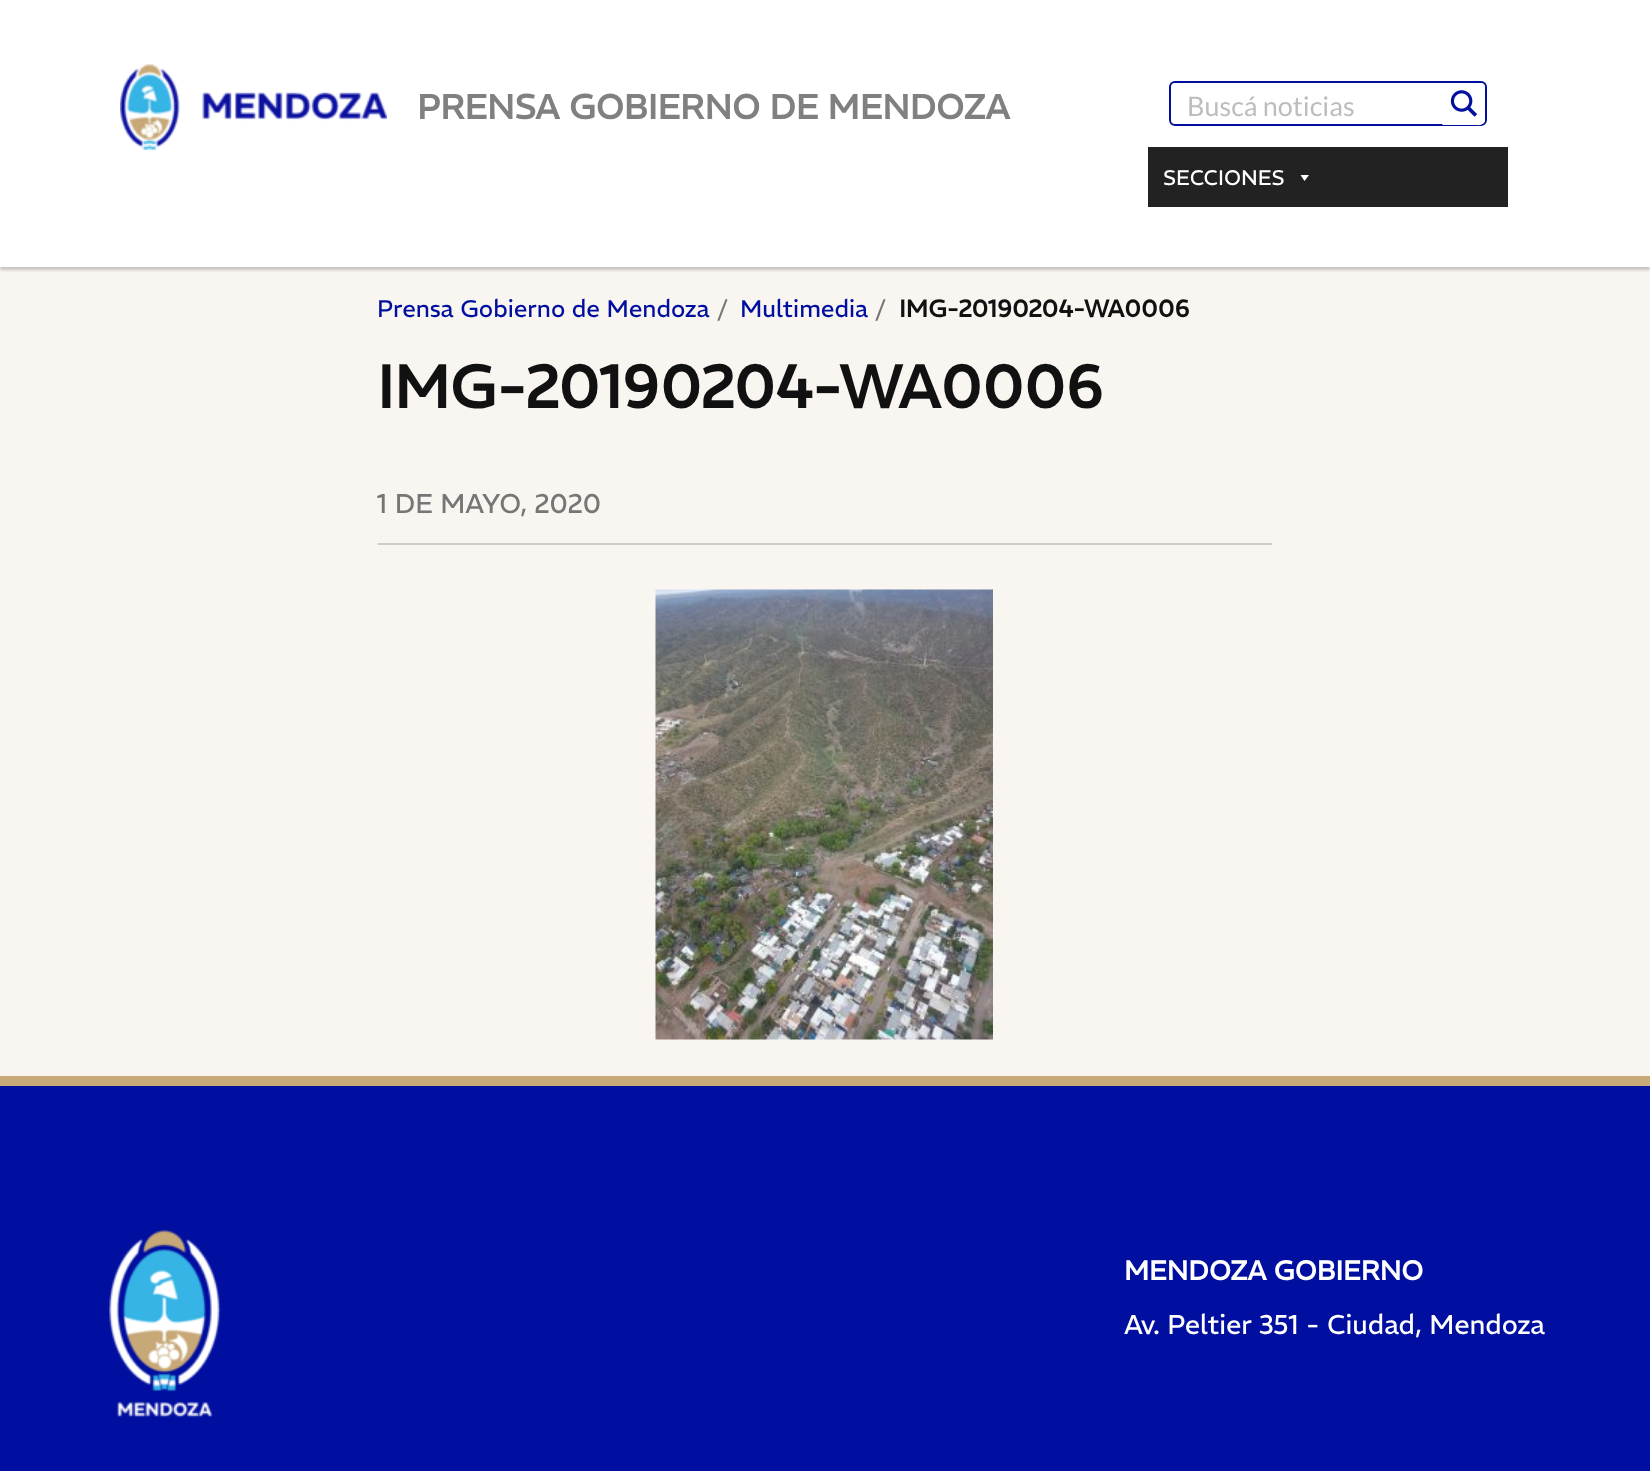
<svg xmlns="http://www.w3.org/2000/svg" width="1650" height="1471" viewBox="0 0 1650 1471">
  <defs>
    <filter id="blur1" x="-50%" y="-200%" width="200%" height="500%"><feGaussianBlur stdDeviation="1.5"/></filter>
    <clipPath id="clip1"><rect x="1170" y="83" width="315" height="42" rx="5"/></clipPath>
  </defs>
  <rect width="100%" height="100%" fill="#f9f5f0"/>
  <rect x="0" y="3" width="1650" height="267" fill="#000000" fill-opacity="0.2" filter="url(#blur1)"/>
  <rect x="0" y="0" width="1650" height="267" fill="#ffffff"/>
  <image x="120" y="64" width="267" height="86" href="img1.png"/>
  <text x="417" y="119" font-family="REM" font-size="34.5" font-weight="bold" fill="#808080">PRENSA GOBIERNO DE MENDOZA</text>
  <rect x="1170" y="82" width="316" height="43" rx="5" fill="none" stroke="#000f9f" stroke-width="2"/>
  <text x="1187" y="116" font-family="Lato" font-size="27" fill="#bdbdbd">Buscá noticias</text>
  <path d="M1442 84V125H1474C1477 125 1482 126 1483 123C1482 124 1481 124 1479 124H1443V84Z" fill="#ffffff" fill-opacity="0.61"/>
  <g clip-path="url(#clip1)">
    <path d="M1443 83H1479C1482.5 83 1485 85.5 1485 89V119C1485 122.5 1482.5 125 1479 125H1443Z" fill="#ffffff"/>
  </g>
  <image x="1450" y="90" width="28" height="27" href="img2.png"/>
  <rect x="1148" y="147" width="360" height="60" fill="#222222"/>
  <text x="1163" y="185" font-family="REM" font-size="21" font-weight="500" fill="#ffffff">SECCIONES</text>
  <path d="M1309 175L1304.5 181L1300.5 175Z" fill="#ffffff"/>
  <text x="377" y="317" font-family="REM" font-size="24" font-weight="500" fill="#000f9f">Prensa Gobierno de Mendoza</text>
  <text x="718" y="317" font-family="REM" font-size="24" font-weight="500" fill="#767676">/</text>
  <text x="740" y="317" font-family="REM" font-size="24" font-weight="500" fill="#000f9f">Multimedia</text>
  <text x="876" y="317" font-family="REM" font-size="24" font-weight="500" fill="#767676">/</text>
  <text x="899" y="317" font-family="REM" font-size="24" font-weight="bold" fill="#111111">IMG-20190204-WA0006</text>
  <text x="377" y="408" font-family="REM" font-size="60" font-weight="bold" fill="#111111">IMG-20190204-WA0006</text>
  <text x="377" y="513" font-family="REM" font-size="27" font-weight="500" fill="#767676">1 DE MAYO, 2020</text>
  <rect x="378" y="543" width="894" height="2" fill="#cccccc"/>
  <image x="655" y="589" width="338" height="451" href="img3.png"/>
  <rect x="0" y="1086" width="1650" height="385" fill="#000f9f"/>
  <rect x="0" y="1076" width="1650" height="10" fill="#c8a977"/>
  <image x="109" y="1230" width="112" height="188" href="img4.png"/>
  <text x="1124" y="1280" font-family="REM" font-size="27" font-weight="bold" fill="#ffffff">MENDOZA GOBIERNO</text>
  <text x="1124" y="1334" font-family="REM" font-size="27" font-weight="500" fill="#ffffff">Av. Peltier 351 - Ciudad, Mendoza</text>
</svg>
